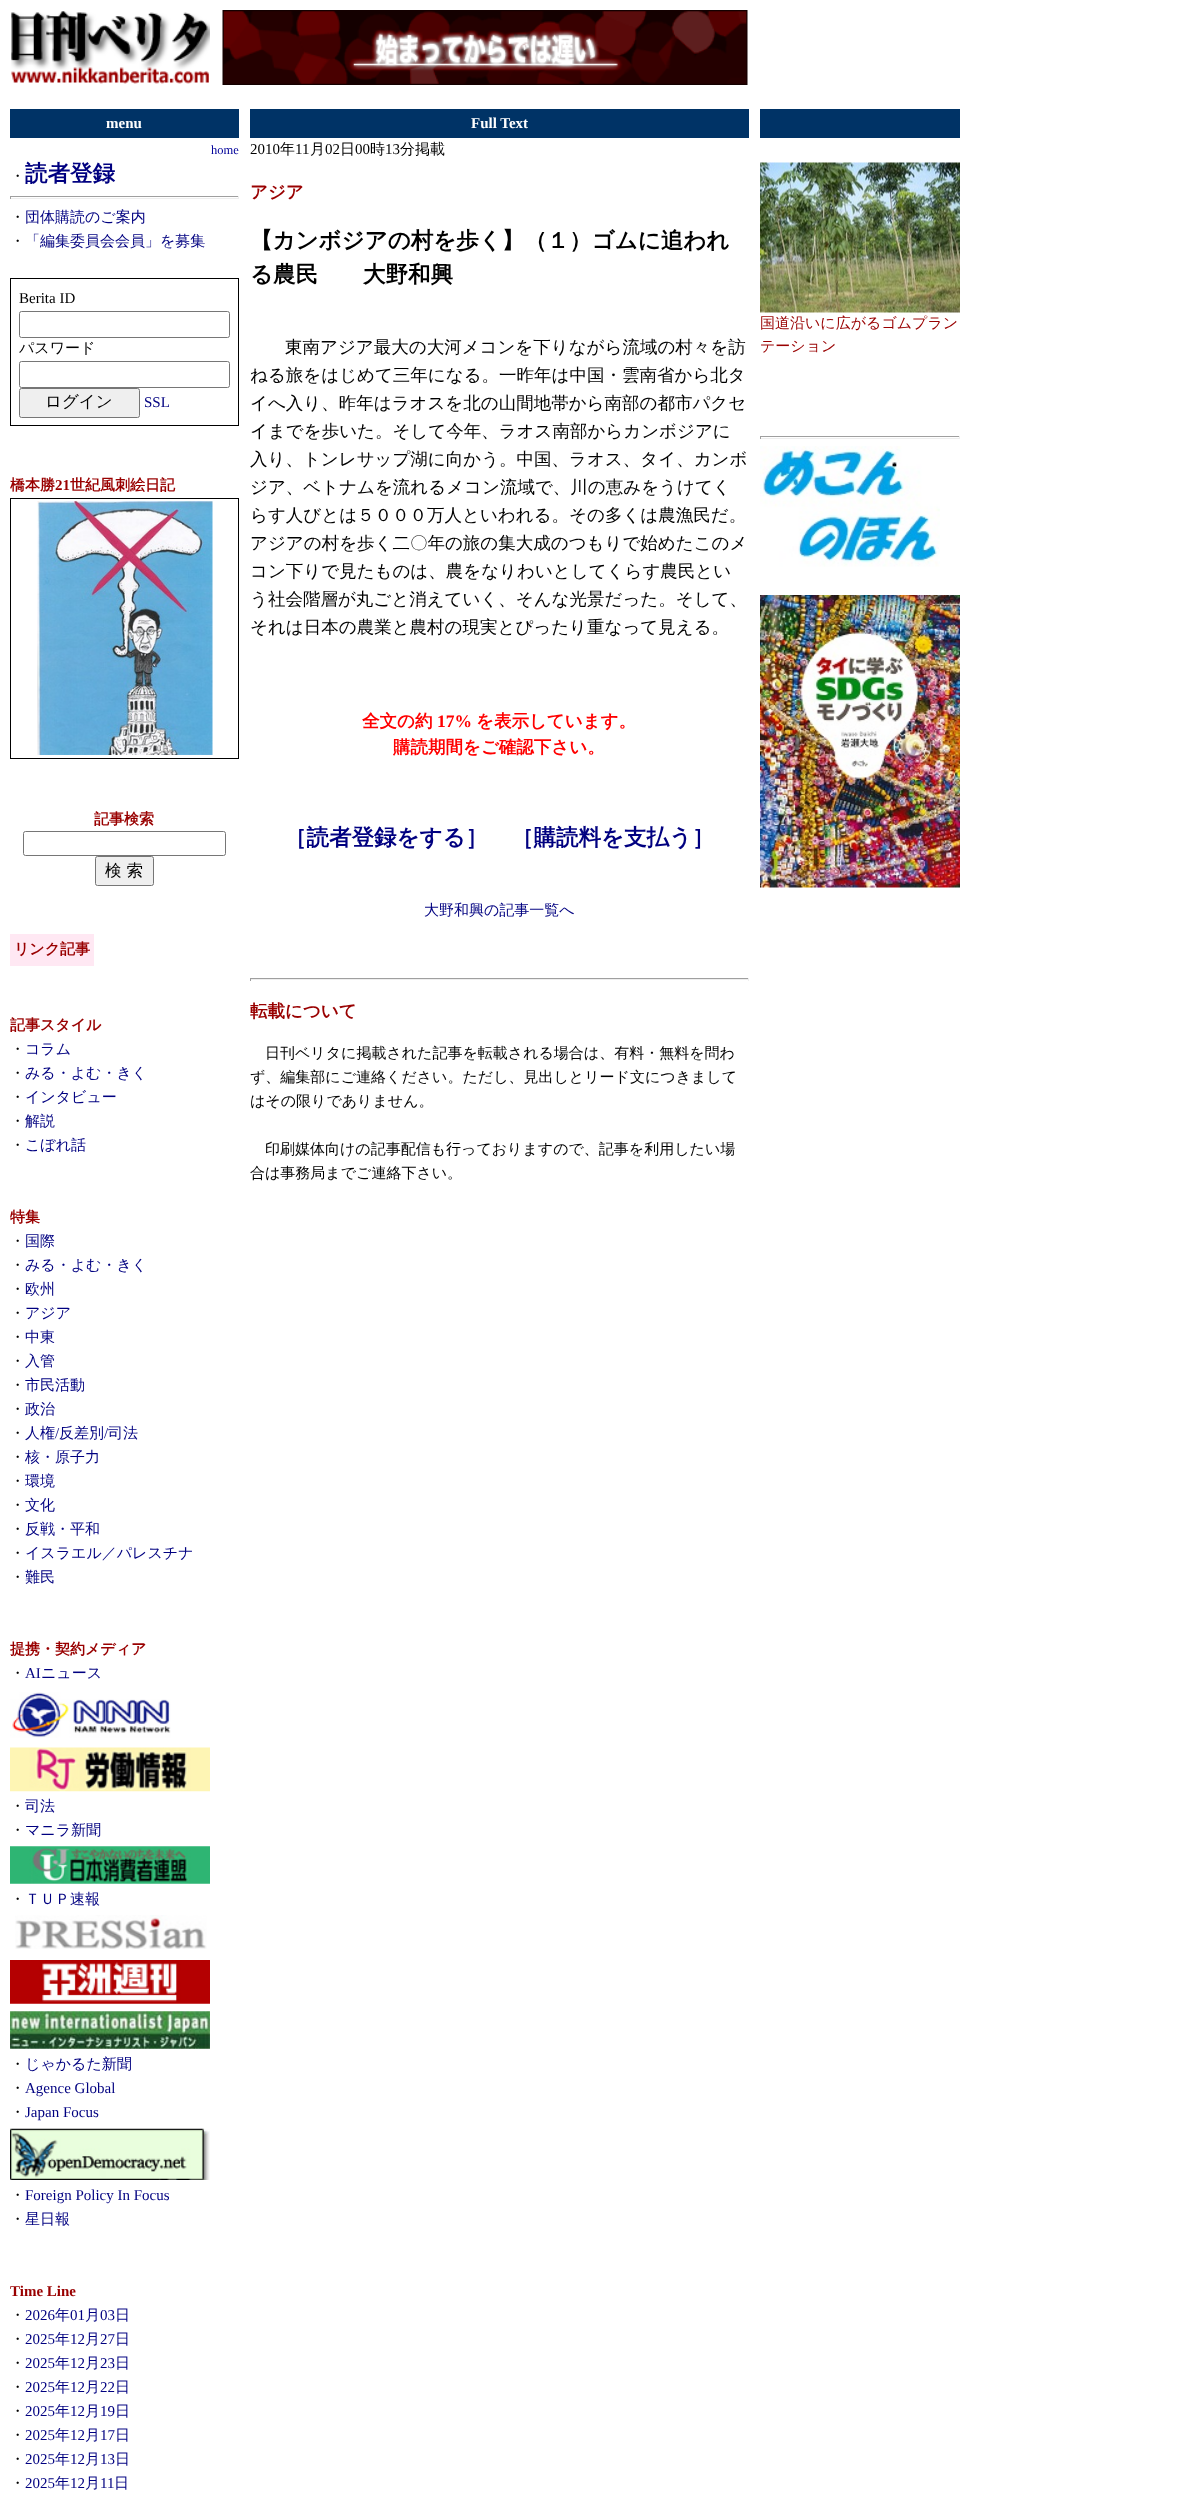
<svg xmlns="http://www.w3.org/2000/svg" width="1204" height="2498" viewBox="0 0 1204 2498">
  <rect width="100%" height="100%" fill="#ffffff"/>
  <image x="11" y="11" width="199" height="73" href="img1.png"/>
  <image x="222" y="10" width="526" height="75" href="img2.png"/>
  <rect x="10" y="109" width="229" height="29" fill="#003366"/>
  <text x="106" y="128" font-family="Liberation Serif" font-size="15" font-weight="bold" fill="#ffffff">menu</text>
  <text x="211" y="154" font-family="Liberation Serif" font-size="12.5" fill="#000099">home</text>
  <text x="10" y="181" font-family="WenQuanYi Zen Hei" font-size="15" font-weight="500" fill="#000000">・</text>
  <text x="25" y="181" font-family="WenQuanYi Zen Hei" font-size="22.5" font-weight="bold" fill="#000080">読者登録</text>
  <rect x="10" y="196" width="229" height="1" fill="#9f9f9f"/>
  <rect x="238" y="196" width="1" height="3" fill="#eeeeee"/>
  <rect x="10" y="198" width="229" height="1" fill="#eeeeee"/>
  <rect x="10" y="196" width="1" height="3" fill="#9f9f9f"/>
  <text x="10" y="222" font-family="WenQuanYi Zen Hei" font-size="15" font-weight="500" fill="#000000">・</text>
  <text x="25" y="222" font-family="WenQuanYi Zen Hei" font-size="15" font-weight="500" fill="#000080">団体購読のご案内</text>
  <text x="10" y="246" font-family="WenQuanYi Zen Hei" font-size="15" font-weight="500" fill="#000000">・</text>
  <text x="25" y="246" font-family="WenQuanYi Zen Hei" font-size="15" font-weight="500" fill="#000080">「編集委員会会員」を募集</text>
  <rect x="10.5" y="278.5" width="228" height="147" fill="none" stroke="#000000"/>
  <text x="19" y="303" font-family="Liberation Serif" font-size="15" fill="#000000">Berita ID</text>
  <rect x="19.5" y="311.5" width="210" height="26" rx="2" fill="none" stroke="#767676"/>
  <text x="19" y="353" font-family="WenQuanYi Zen Hei" font-size="15" font-weight="500" fill="#000000">パスワード</text>
  <rect x="19.5" y="361.5" width="210" height="26" rx="2" fill="none" stroke="#767676"/>
  <rect x="19.5" y="388.5" width="120" height="29" rx="2" fill="#efefef" stroke="#767676"/>
  <text x="45" y="407" font-family="WenQuanYi Zen Hei" font-size="16.5" font-weight="500" fill="#000000">ログイン</text>
  <text x="144" y="407" font-family="Liberation Serif" font-size="15" fill="#000080">SSL</text>
  <text x="10" y="490" font-family="WenQuanYi Zen Hei" font-size="15" font-weight="bold" fill="#990000">橋本勝</text>
  <text x="55" y="490" font-family="Liberation Serif" font-size="15" font-weight="bold" fill="#990000">21</text>
  <text x="70" y="490" font-family="WenQuanYi Zen Hei" font-size="15" font-weight="bold" fill="#990000">世紀風刺絵日記</text>
  <rect x="10.5" y="498.5" width="228" height="260" fill="none" stroke="#000000"/>
  <image x="37" y="501" width="176" height="254" href="img3.png"/>
  <text x="94" y="824" font-family="WenQuanYi Zen Hei" font-size="15" font-weight="bold" fill="#990000">記事検索</text>
  <rect x="23.5" y="831.5" width="202" height="24" rx="2" fill="none" stroke="#767676"/>
  <rect x="95.5" y="856.5" width="58" height="29" rx="2" fill="#efefef" stroke="#767676"/>
  <text x="105" y="876" font-family="WenQuanYi Zen Hei" font-size="16.5" font-weight="500" fill="#000000">検 索</text>
  <rect x="10" y="934" width="84" height="32" fill="#ffe8f3"/>
  <text x="14" y="954" font-family="WenQuanYi Zen Hei" font-size="15" font-weight="bold" fill="#990000">リンク記事</text>
  <text x="10" y="1030" font-family="WenQuanYi Zen Hei" font-size="15" font-weight="bold" fill="#990000">記事スタイル</text>
  <text x="10" y="1054" font-family="WenQuanYi Zen Hei" font-size="15" font-weight="500" fill="#000000">・</text>
  <text x="25" y="1054" font-family="WenQuanYi Zen Hei" font-size="15" font-weight="500" fill="#000080">コラム</text>
  <text x="10" y="1078" font-family="WenQuanYi Zen Hei" font-size="15" font-weight="500" fill="#000000">・</text>
  <text x="25" y="1078" font-family="WenQuanYi Zen Hei" font-size="15" font-weight="500" fill="#000080">みる・よむ・きく</text>
  <text x="10" y="1102" font-family="WenQuanYi Zen Hei" font-size="15" font-weight="500" fill="#000000">・</text>
  <text x="25" y="1102" font-family="WenQuanYi Zen Hei" font-size="15" font-weight="500" fill="#000080">インタビュー</text>
  <text x="10" y="1126" font-family="WenQuanYi Zen Hei" font-size="15" font-weight="500" fill="#000000">・</text>
  <text x="25" y="1126" font-family="WenQuanYi Zen Hei" font-size="15" font-weight="500" fill="#000080">解説</text>
  <text x="10" y="1150" font-family="WenQuanYi Zen Hei" font-size="15" font-weight="500" fill="#000000">・</text>
  <text x="25" y="1150" font-family="WenQuanYi Zen Hei" font-size="15" font-weight="500" fill="#000080">こぼれ話</text>
  <text x="10" y="1222" font-family="WenQuanYi Zen Hei" font-size="15" font-weight="bold" fill="#990000">特集</text>
  <text x="10" y="1246" font-family="WenQuanYi Zen Hei" font-size="15" font-weight="500" fill="#000000">・</text>
  <text x="25" y="1246" font-family="WenQuanYi Zen Hei" font-size="15" font-weight="500" fill="#000080">国際</text>
  <text x="10" y="1270" font-family="WenQuanYi Zen Hei" font-size="15" font-weight="500" fill="#000000">・</text>
  <text x="25" y="1270" font-family="WenQuanYi Zen Hei" font-size="15" font-weight="500" fill="#000080">みる・よむ・きく</text>
  <text x="10" y="1294" font-family="WenQuanYi Zen Hei" font-size="15" font-weight="500" fill="#000000">・</text>
  <text x="25" y="1294" font-family="WenQuanYi Zen Hei" font-size="15" font-weight="500" fill="#000080">欧州</text>
  <text x="10" y="1318" font-family="WenQuanYi Zen Hei" font-size="15" font-weight="500" fill="#000000">・</text>
  <text x="25" y="1318" font-family="WenQuanYi Zen Hei" font-size="15" font-weight="500" fill="#000080">アジア</text>
  <text x="10" y="1342" font-family="WenQuanYi Zen Hei" font-size="15" font-weight="500" fill="#000000">・</text>
  <text x="25" y="1342" font-family="WenQuanYi Zen Hei" font-size="15" font-weight="500" fill="#000080">中東</text>
  <text x="10" y="1366" font-family="WenQuanYi Zen Hei" font-size="15" font-weight="500" fill="#000000">・</text>
  <text x="25" y="1366" font-family="WenQuanYi Zen Hei" font-size="15" font-weight="500" fill="#000080">入管</text>
  <text x="10" y="1390" font-family="WenQuanYi Zen Hei" font-size="15" font-weight="500" fill="#000000">・</text>
  <text x="25" y="1390" font-family="WenQuanYi Zen Hei" font-size="15" font-weight="500" fill="#000080">市民活動</text>
  <text x="10" y="1414" font-family="WenQuanYi Zen Hei" font-size="15" font-weight="500" fill="#000000">・</text>
  <text x="25" y="1414" font-family="WenQuanYi Zen Hei" font-size="15" font-weight="500" fill="#000080">政治</text>
  <text x="10" y="1438" font-family="WenQuanYi Zen Hei" font-size="15" font-weight="500" fill="#000000">・</text>
  <text x="25" y="1438" font-family="WenQuanYi Zen Hei" font-size="15" font-weight="500" fill="#000080">人権</text>
  <text x="55" y="1438" font-family="Liberation Serif" font-size="15" fill="#000080">/</text>
  <text x="59" y="1438" font-family="WenQuanYi Zen Hei" font-size="15" font-weight="500" fill="#000080">反差別</text>
  <text x="104" y="1438" font-family="Liberation Serif" font-size="15" fill="#000080">/</text>
  <text x="108" y="1438" font-family="WenQuanYi Zen Hei" font-size="15" font-weight="500" fill="#000080">司法</text>
  <text x="10" y="1462" font-family="WenQuanYi Zen Hei" font-size="15" font-weight="500" fill="#000000">・</text>
  <text x="25" y="1462" font-family="WenQuanYi Zen Hei" font-size="15" font-weight="500" fill="#000080">核・原子力</text>
  <text x="10" y="1486" font-family="WenQuanYi Zen Hei" font-size="15" font-weight="500" fill="#000000">・</text>
  <text x="25" y="1486" font-family="WenQuanYi Zen Hei" font-size="15" font-weight="500" fill="#000080">環境</text>
  <text x="10" y="1510" font-family="WenQuanYi Zen Hei" font-size="15" font-weight="500" fill="#000000">・</text>
  <text x="25" y="1510" font-family="WenQuanYi Zen Hei" font-size="15" font-weight="500" fill="#000080">文化</text>
  <text x="10" y="1534" font-family="WenQuanYi Zen Hei" font-size="15" font-weight="500" fill="#000000">・</text>
  <text x="25" y="1534" font-family="WenQuanYi Zen Hei" font-size="15" font-weight="500" fill="#000080">反戦・平和</text>
  <text x="10" y="1558" font-family="WenQuanYi Zen Hei" font-size="15" font-weight="500" fill="#000000">・</text>
  <text x="25" y="1558" font-family="WenQuanYi Zen Hei" font-size="15" font-weight="500" fill="#000080">イスラエル／パレスチナ</text>
  <text x="10" y="1582" font-family="WenQuanYi Zen Hei" font-size="15" font-weight="500" fill="#000000">・</text>
  <text x="25" y="1582" font-family="WenQuanYi Zen Hei" font-size="15" font-weight="500" fill="#000080">難民</text>
  <text x="10" y="1654" font-family="WenQuanYi Zen Hei" font-size="15" font-weight="bold" fill="#990000">提携・契約メディア</text>
  <text x="10" y="1678" font-family="WenQuanYi Zen Hei" font-size="15" font-weight="500" fill="#000000">・</text>
  <text x="25" y="1678" font-family="Liberation Serif" font-size="15" fill="#000080">AI</text>
  <text x="41" y="1678" font-family="WenQuanYi Zen Hei" font-size="15" font-weight="500" fill="#000080">ニュース</text>
  <image x="10" y="1692" width="161" height="46" href="img4.png"/>
  <image x="10" y="1747" width="200" height="45" href="img5.png"/>
  <text x="10" y="1811" font-family="WenQuanYi Zen Hei" font-size="15" font-weight="500" fill="#000000">・</text>
  <text x="25" y="1811" font-family="WenQuanYi Zen Hei" font-size="15" font-weight="500" fill="#000080">司法</text>
  <text x="10" y="1835" font-family="WenQuanYi Zen Hei" font-size="15" font-weight="500" fill="#000000">・</text>
  <text x="25" y="1835" font-family="WenQuanYi Zen Hei" font-size="15" font-weight="500" fill="#000080">マニラ新聞</text>
  <image x="10" y="1846" width="200" height="38" href="img6.png"/>
  <text x="10" y="1904" font-family="WenQuanYi Zen Hei" font-size="15" font-weight="500" fill="#000000">・</text>
  <text x="25" y="1904" font-family="WenQuanYi Zen Hei" font-size="15" font-weight="500" fill="#000080">ＴＵＰ速報</text>
  <image x="15" y="1915" width="192" height="34" href="img7.png"/>
  <image x="10" y="1960" width="200" height="44" href="img8.png"/>
  <image x="10" y="2011" width="200" height="38" href="img9.png"/>
  <text x="10" y="2069" font-family="WenQuanYi Zen Hei" font-size="15" font-weight="500" fill="#000000">・</text>
  <text x="25" y="2069" font-family="WenQuanYi Zen Hei" font-size="15" font-weight="500" fill="#000080">じゃかるた新聞</text>
  <text x="10" y="2093" font-family="WenQuanYi Zen Hei" font-size="15" font-weight="500" fill="#000000">・</text>
  <text x="25" y="2093" font-family="Liberation Serif" font-size="15" fill="#000080">Agence Global</text>
  <text x="10" y="2117" font-family="WenQuanYi Zen Hei" font-size="15" font-weight="500" fill="#000000">・</text>
  <text x="25" y="2117" font-family="Liberation Serif" font-size="15" fill="#000080">Japan Focus</text>
  <image x="10" y="2128" width="200" height="52" href="img10.png"/>
  <text x="10" y="2200" font-family="WenQuanYi Zen Hei" font-size="15" font-weight="500" fill="#000000">・</text>
  <text x="25" y="2200" font-family="Liberation Serif" font-size="15" fill="#000080">Foreign Policy In Focus</text>
  <text x="10" y="2224" font-family="WenQuanYi Zen Hei" font-size="15" font-weight="500" fill="#000000">・</text>
  <text x="25" y="2224" font-family="WenQuanYi Zen Hei" font-size="15" font-weight="500" fill="#000080">星日報</text>
  <text x="10" y="2296" font-family="Liberation Serif" font-size="15" font-weight="bold" fill="#990000">Time Line</text>
  <text x="10" y="2320" font-family="WenQuanYi Zen Hei" font-size="15" font-weight="500" fill="#000000">・</text>
  <text x="25" y="2320" font-family="Liberation Serif" font-size="15" fill="#000080">2026</text>
  <text x="55" y="2320" font-family="WenQuanYi Zen Hei" font-size="15" font-weight="500" fill="#000080">年</text>
  <text x="70" y="2320" font-family="Liberation Serif" font-size="15" fill="#000080">01</text>
  <text x="85" y="2320" font-family="WenQuanYi Zen Hei" font-size="15" font-weight="500" fill="#000080">月</text>
  <text x="100" y="2320" font-family="Liberation Serif" font-size="15" fill="#000080">03</text>
  <text x="115" y="2320" font-family="WenQuanYi Zen Hei" font-size="15" font-weight="500" fill="#000080">日</text>
  <text x="10" y="2344" font-family="WenQuanYi Zen Hei" font-size="15" font-weight="500" fill="#000000">・</text>
  <text x="25" y="2344" font-family="Liberation Serif" font-size="15" fill="#000080">2025</text>
  <text x="55" y="2344" font-family="WenQuanYi Zen Hei" font-size="15" font-weight="500" fill="#000080">年</text>
  <text x="70" y="2344" font-family="Liberation Serif" font-size="15" fill="#000080">12</text>
  <text x="85" y="2344" font-family="WenQuanYi Zen Hei" font-size="15" font-weight="500" fill="#000080">月</text>
  <text x="100" y="2344" font-family="Liberation Serif" font-size="15" fill="#000080">27</text>
  <text x="115" y="2344" font-family="WenQuanYi Zen Hei" font-size="15" font-weight="500" fill="#000080">日</text>
  <text x="10" y="2368" font-family="WenQuanYi Zen Hei" font-size="15" font-weight="500" fill="#000000">・</text>
  <text x="25" y="2368" font-family="Liberation Serif" font-size="15" fill="#000080">2025</text>
  <text x="55" y="2368" font-family="WenQuanYi Zen Hei" font-size="15" font-weight="500" fill="#000080">年</text>
  <text x="70" y="2368" font-family="Liberation Serif" font-size="15" fill="#000080">12</text>
  <text x="85" y="2368" font-family="WenQuanYi Zen Hei" font-size="15" font-weight="500" fill="#000080">月</text>
  <text x="100" y="2368" font-family="Liberation Serif" font-size="15" fill="#000080">23</text>
  <text x="115" y="2368" font-family="WenQuanYi Zen Hei" font-size="15" font-weight="500" fill="#000080">日</text>
  <text x="10" y="2392" font-family="WenQuanYi Zen Hei" font-size="15" font-weight="500" fill="#000000">・</text>
  <text x="25" y="2392" font-family="Liberation Serif" font-size="15" fill="#000080">2025</text>
  <text x="55" y="2392" font-family="WenQuanYi Zen Hei" font-size="15" font-weight="500" fill="#000080">年</text>
  <text x="70" y="2392" font-family="Liberation Serif" font-size="15" fill="#000080">12</text>
  <text x="85" y="2392" font-family="WenQuanYi Zen Hei" font-size="15" font-weight="500" fill="#000080">月</text>
  <text x="100" y="2392" font-family="Liberation Serif" font-size="15" fill="#000080">22</text>
  <text x="115" y="2392" font-family="WenQuanYi Zen Hei" font-size="15" font-weight="500" fill="#000080">日</text>
  <text x="10" y="2416" font-family="WenQuanYi Zen Hei" font-size="15" font-weight="500" fill="#000000">・</text>
  <text x="25" y="2416" font-family="Liberation Serif" font-size="15" fill="#000080">2025</text>
  <text x="55" y="2416" font-family="WenQuanYi Zen Hei" font-size="15" font-weight="500" fill="#000080">年</text>
  <text x="70" y="2416" font-family="Liberation Serif" font-size="15" fill="#000080">12</text>
  <text x="85" y="2416" font-family="WenQuanYi Zen Hei" font-size="15" font-weight="500" fill="#000080">月</text>
  <text x="100" y="2416" font-family="Liberation Serif" font-size="15" fill="#000080">19</text>
  <text x="115" y="2416" font-family="WenQuanYi Zen Hei" font-size="15" font-weight="500" fill="#000080">日</text>
  <text x="10" y="2440" font-family="WenQuanYi Zen Hei" font-size="15" font-weight="500" fill="#000000">・</text>
  <text x="25" y="2440" font-family="Liberation Serif" font-size="15" fill="#000080">2025</text>
  <text x="55" y="2440" font-family="WenQuanYi Zen Hei" font-size="15" font-weight="500" fill="#000080">年</text>
  <text x="70" y="2440" font-family="Liberation Serif" font-size="15" fill="#000080">12</text>
  <text x="85" y="2440" font-family="WenQuanYi Zen Hei" font-size="15" font-weight="500" fill="#000080">月</text>
  <text x="100" y="2440" font-family="Liberation Serif" font-size="15" fill="#000080">17</text>
  <text x="115" y="2440" font-family="WenQuanYi Zen Hei" font-size="15" font-weight="500" fill="#000080">日</text>
  <text x="10" y="2464" font-family="WenQuanYi Zen Hei" font-size="15" font-weight="500" fill="#000000">・</text>
  <text x="25" y="2464" font-family="Liberation Serif" font-size="15" fill="#000080">2025</text>
  <text x="55" y="2464" font-family="WenQuanYi Zen Hei" font-size="15" font-weight="500" fill="#000080">年</text>
  <text x="70" y="2464" font-family="Liberation Serif" font-size="15" fill="#000080">12</text>
  <text x="85" y="2464" font-family="WenQuanYi Zen Hei" font-size="15" font-weight="500" fill="#000080">月</text>
  <text x="100" y="2464" font-family="Liberation Serif" font-size="15" fill="#000080">13</text>
  <text x="115" y="2464" font-family="WenQuanYi Zen Hei" font-size="15" font-weight="500" fill="#000080">日</text>
  <text x="10" y="2488" font-family="WenQuanYi Zen Hei" font-size="15" font-weight="500" fill="#000000">・</text>
  <text x="25" y="2488" font-family="Liberation Serif" font-size="15" fill="#000080">2025</text>
  <text x="55" y="2488" font-family="WenQuanYi Zen Hei" font-size="15" font-weight="500" fill="#000080">年</text>
  <text x="70" y="2488" font-family="Liberation Serif" font-size="15" fill="#000080">12</text>
  <text x="85" y="2488" font-family="WenQuanYi Zen Hei" font-size="15" font-weight="500" fill="#000080">月</text>
  <text x="100" y="2488" font-family="Liberation Serif" font-size="15" fill="#000080">11</text>
  <text x="114" y="2488" font-family="WenQuanYi Zen Hei" font-size="15" font-weight="500" fill="#000080">日</text>
  <rect x="250" y="109" width="499" height="29" fill="#003366"/>
  <text x="471" y="128" font-family="Liberation Serif" font-size="15" font-weight="bold" fill="#ffffff">Full Text</text>
  <text x="250" y="154" font-family="Liberation Serif" font-size="15" fill="#000000">2010</text>
  <text x="280" y="154" font-family="WenQuanYi Zen Hei" font-size="15" font-weight="500" fill="#000000">年</text>
  <text x="295" y="154" font-family="Liberation Serif" font-size="15" fill="#000000">11</text>
  <text x="310" y="154" font-family="WenQuanYi Zen Hei" font-size="15" font-weight="500" fill="#000000">月</text>
  <text x="325" y="154" font-family="Liberation Serif" font-size="15" fill="#000000">02</text>
  <text x="340" y="154" font-family="WenQuanYi Zen Hei" font-size="15" font-weight="500" fill="#000000">日</text>
  <text x="355" y="154" font-family="Liberation Serif" font-size="15" fill="#000000">00</text>
  <text x="370" y="154" font-family="WenQuanYi Zen Hei" font-size="15" font-weight="500" fill="#000000">時</text>
  <text x="385" y="154" font-family="Liberation Serif" font-size="15" fill="#000000">13</text>
  <text x="400" y="154" font-family="WenQuanYi Zen Hei" font-size="15" font-weight="500" fill="#000000">分掲載</text>
  <text x="250" y="198" font-family="WenQuanYi Zen Hei" font-size="17.5" font-weight="bold" fill="#990000">アジア</text>
  <text x="250" y="248" font-family="WenQuanYi Zen Hei" font-size="22.5" font-weight="bold" fill="#000000">【カンボジアの村を歩く】（１）ゴムに追われ</text>
  <text x="250" y="282" font-family="WenQuanYi Zen Hei" font-size="22.5" font-weight="bold" fill="#000000">る農民　　大野和興</text>
  <text x="285" y="353" font-family="WenQuanYi Zen Hei" font-size="17.5" font-weight="500" fill="#000000">東南アジア最大の大河メコンを下りながら流域の村々を訪</text>
  <text x="250" y="381" font-family="WenQuanYi Zen Hei" font-size="17.5" font-weight="500" fill="#000000">ねる旅をはじめて三年になる。一昨年は中国・雲南省から北タ</text>
  <text x="250" y="409" font-family="WenQuanYi Zen Hei" font-size="17.5" font-weight="500" fill="#000000">イへ入り、昨年はラオスを北の山間地帯から南部の都市パクセ</text>
  <text x="250" y="437" font-family="WenQuanYi Zen Hei" font-size="17.5" font-weight="500" fill="#000000">イまでを歩いた。そして今年、ラオス南部からカンボジアに</text>
  <text x="250" y="465" font-family="WenQuanYi Zen Hei" font-size="17.5" font-weight="500" fill="#000000">入り、トンレサップ湖に向かう。中国、ラオス、タイ、カンボ</text>
  <text x="250" y="493" font-family="WenQuanYi Zen Hei" font-size="17.5" font-weight="500" fill="#000000">ジア、ベトナムを流れるメコン流域で、川の恵みをうけてく</text>
  <text x="250" y="521" font-family="WenQuanYi Zen Hei" font-size="17.5" font-weight="500" fill="#000000">らす人びとは５０００万人といわれる。その多くは農漁民だ。</text>
  <text x="250" y="549" font-family="WenQuanYi Zen Hei" font-size="17.5" font-weight="500" fill="#000000">アジアの村を歩く二〇年の旅の集大成のつもりで始めたこのメ</text>
  <text x="250" y="577" font-family="WenQuanYi Zen Hei" font-size="17.5" font-weight="500" fill="#000000">コン下りで見たものは、農をなりわいとしてくらす農民とい</text>
  <text x="250" y="605" font-family="WenQuanYi Zen Hei" font-size="17.5" font-weight="500" fill="#000000">う社会階層が丸ごと消えていく、そんな光景だった。そして、</text>
  <text x="250" y="633" font-family="WenQuanYi Zen Hei" font-size="17.5" font-weight="500" fill="#000000">それは日本の農業と農村の現実とぴったり重なって見える。</text>
  <text x="362" y="727" font-family="WenQuanYi Zen Hei" font-size="17.5" font-weight="bold" fill="#ff0000">全文の約</text>
  <text x="437" y="727" font-family="Liberation Serif" font-size="17.5" font-weight="bold" fill="#ff0000">17%</text>
  <text x="476" y="727" font-family="WenQuanYi Zen Hei" font-size="17.5" font-weight="bold" fill="#ff0000">を表示しています。</text>
  <text x="393" y="753" font-family="WenQuanYi Zen Hei" font-size="17.5" font-weight="bold" fill="#ff0000">購読期間をご確認下さい。</text>
  <text x="284" y="845" font-family="WenQuanYi Zen Hei" font-size="22.5" font-weight="bold" fill="#000080">［読者登録をする］</text>
  <text x="511" y="845" font-family="WenQuanYi Zen Hei" font-size="22.5" font-weight="bold" fill="#000080">［購読料を支払う］</text>
  <text x="424" y="915" font-family="WenQuanYi Zen Hei" font-size="15" font-weight="500" fill="#000080">大野和興の記事一覧へ</text>
  <rect x="250" y="978" width="499" height="1" fill="#9f9f9f"/>
  <rect x="748" y="978" width="1" height="3" fill="#eeeeee"/>
  <rect x="250" y="979" width="499" height="1" fill="#eeeeee"/>
  <rect x="250" y="978" width="1" height="3" fill="#9f9f9f"/>
  <text x="250" y="1017" font-family="WenQuanYi Zen Hei" font-size="17.5" font-weight="bold" fill="#990000">転載について</text>
  <text x="265" y="1058" font-family="WenQuanYi Zen Hei" font-size="15" font-weight="500" fill="#000000">日刊ベリタに掲載された記事を転載される場合は、有料・無料を問わ</text>
  <text x="250" y="1082" font-family="WenQuanYi Zen Hei" font-size="15" font-weight="500" fill="#000000">ず、編集部にご連絡ください。ただし、見出しとリード文につきまして</text>
  <text x="250" y="1106" font-family="WenQuanYi Zen Hei" font-size="15" font-weight="500" fill="#000000">はその限りでありません。</text>
  <text x="265" y="1154" font-family="WenQuanYi Zen Hei" font-size="15" font-weight="500" fill="#000000">印刷媒体向けの記事配信も行っておりますので、記事を利用したい場</text>
  <text x="250" y="1178" font-family="WenQuanYi Zen Hei" font-size="15" font-weight="500" fill="#000000">合は事務局までご連絡下さい。</text>
  <rect x="760" y="109" width="200" height="29" fill="#003366"/>
  <image x="760" y="162" width="200" height="151" href="img11.png"/>
  <text x="760" y="328" font-family="WenQuanYi Zen Hei" font-size="15" font-weight="500" fill="#990000">国道沿いに広がるゴムプラン</text>
  <text x="760" y="351" font-family="WenQuanYi Zen Hei" font-size="15" font-weight="500" fill="#990000">テーション</text>
  <rect x="760" y="436" width="200" height="1" fill="#9f9f9f"/>
  <rect x="959" y="436" width="1" height="3" fill="#eeeeee"/>
  <rect x="760" y="438" width="200" height="1" fill="#eeeeee"/>
  <rect x="760" y="436" width="1" height="3" fill="#9f9f9f"/>
  <image x="760" y="446" width="180" height="121" href="img12.png"/>
  <image x="760" y="595" width="200" height="293" href="img13.png"/>
</svg>
